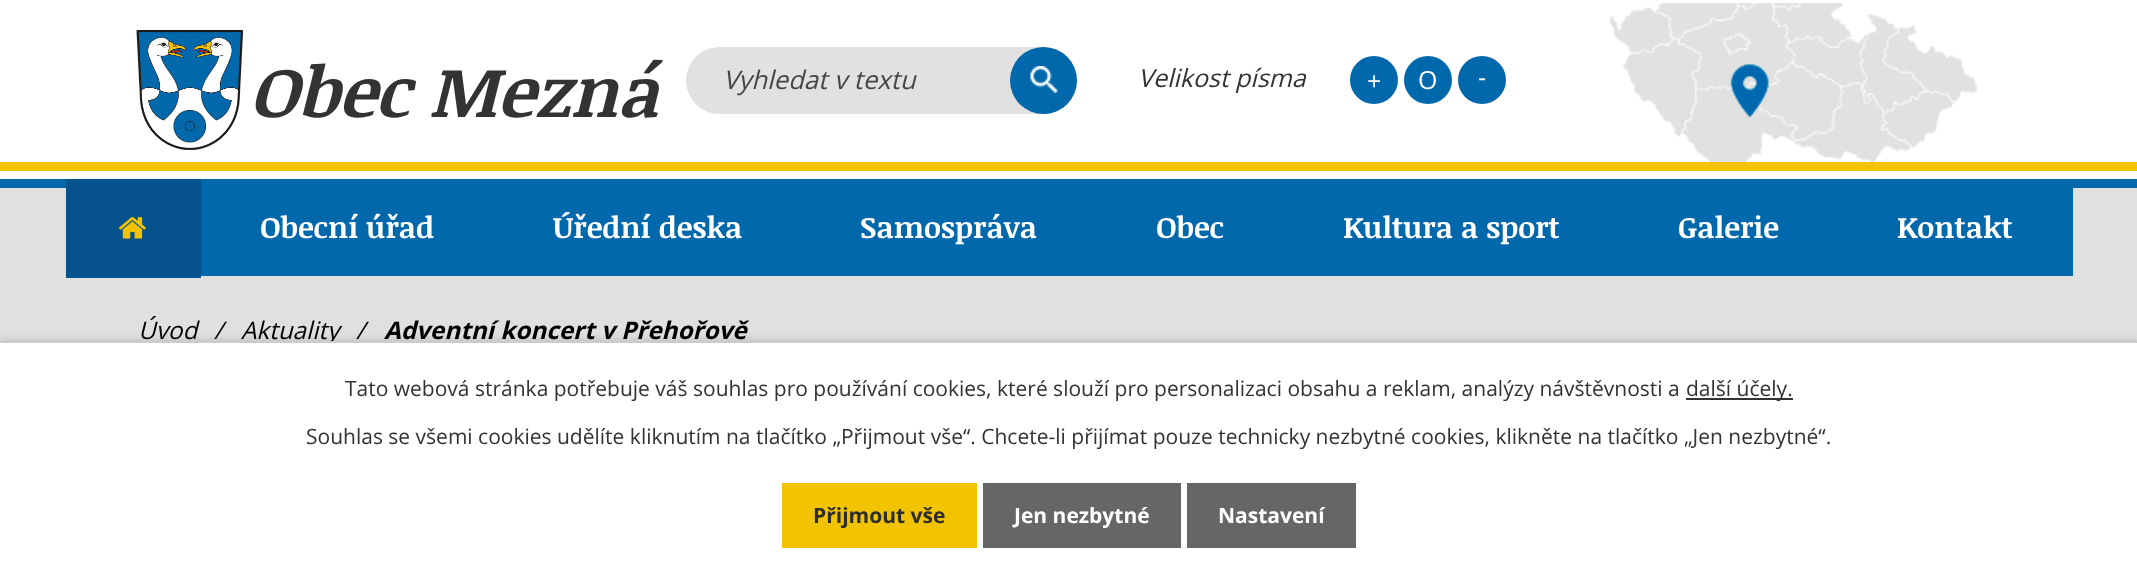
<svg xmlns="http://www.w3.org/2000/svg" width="2137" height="576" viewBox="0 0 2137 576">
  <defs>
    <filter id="blur1" x="-50%" y="-200%" width="200%" height="500%"><feGaussianBlur stdDeviation="4"/></filter>
  </defs>
  <rect width="100%" height="100%" fill="#e0e0e0"/>
  <rect x="0" y="0" width="2137" height="179" fill="#ffffff"/>
  <rect x="0" y="179" width="2137" height="9" fill="#0168ab"/>
  <image x="136" y="30" width="107" height="120" href="img1.png"/>
  <text x="249" y="117" font-family="Noticia Text" font-size="70.25" font-weight="bold" font-style="italic" fill="#333333">Obec Mezná</text>
  <rect x="686" y="47" width="391" height="67" rx="33.5" fill="#e1e1e1"/>
  <text x="723" y="89" font-family="Open Sans" font-size="25.75" font-style="italic" fill="#464646">Vyhledat v textu</text>
  <circle cx="1043.5" cy="80.5" r="33.5" fill="#0168ab"/>
  <image x="1030" y="66" width="28" height="27" href="img2.png"/>
  <text x="1138" y="87" font-family="Open Sans" font-size="25" font-style="italic" fill="#333333">Velikost písma</text>
  <circle cx="1374" cy="80" r="24" fill="#0168ab"/>
  <text x="1367" y="90" font-family="Open Sans" font-size="25" fill="#ffffff">+</text>
  <circle cx="1428" cy="80" r="24" fill="#0168ab"/>
  <text x="1418" y="89" font-family="Open Sans" font-size="25" fill="#ffffff">O</text>
  <circle cx="1482" cy="80" r="24" fill="#0168ab"/>
  <text x="1478" y="86" font-family="Open Sans" font-size="25" fill="#ffffff">-</text>
  <image x="1609" y="3" width="368" height="159" href="img3.png"/>
  <rect x="0" y="162" width="2137" height="9" fill="#f1c300"/>
  <rect x="201" y="188" width="1872" height="88" fill="#0168ab"/>
  <rect x="66" y="179" width="135" height="99" fill="#05528c"/>
  <image x="119" y="217" width="27" height="22" href="img4.png"/>
  <text x="260" y="238" font-family="Noticia Text" font-size="29.75" font-weight="bold" fill="#ffffff">Obecní úřad</text>
  <text x="553" y="238" font-family="Noticia Text" font-size="29.75" font-weight="bold" fill="#ffffff">Úřední deska</text>
  <text x="860" y="238" font-family="Noticia Text" font-size="29.75" font-weight="bold" fill="#ffffff">Samospráva</text>
  <text x="1156" y="238" font-family="Noticia Text" font-size="29.75" font-weight="bold" fill="#ffffff">Obec</text>
  <text x="1343" y="238" font-family="Noticia Text" font-size="29.75" font-weight="bold" fill="#ffffff">Kultura a sport</text>
  <text x="1678" y="238" font-family="Noticia Text" font-size="29.75" font-weight="bold" fill="#ffffff">Galerie</text>
  <text x="1897" y="238" font-family="Noticia Text" font-size="29.75" font-weight="bold" fill="#ffffff">Kontakt</text>
  <text x="138" y="339" font-family="Open Sans" font-size="24.25" font-style="italic" fill="#000000">Úvod</text>
  <text x="214" y="339" font-family="Open Sans" font-size="24.25" font-style="italic" fill="#000000">/</text>
  <text x="241" y="339" font-family="Open Sans" font-size="24.25" font-style="italic" fill="#000000">Aktuality</text>
  <text x="356" y="339" font-family="Open Sans" font-size="24.25" font-style="italic" fill="#000000">/</text>
  <text x="384" y="339" font-family="Open Sans" font-size="24.25" font-weight="bold" font-style="italic" fill="#000000">Adventní koncert v Přehořově</text>
  <rect x="0" y="341" width="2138" height="235" fill="#000000" fill-opacity="0.2" filter="url(#blur1)"/>
  <rect x="0" y="343" width="2137" height="233" fill="#ffffff"/>
  <rect x="0" y="341" width="2137" height="2" fill="#cccccc"/>
  <text x="345" y="396" font-family="Open Sans" font-size="21" fill="#333333">Tato webová stránka potřebuje váš souhlas pro používání cookies, které slouží pro personalizaci obsahu a reklam, analýzy návštěvnosti a</text>
  <rect x="1686" y="398" width="107" height="2" fill="#333333"/>
  <text x="1686" y="396" font-family="Open Sans" font-size="21" fill="#333333">další účely.</text>
  <text x="306" y="444" font-family="Open Sans" font-size="21" fill="#333333">Souhlas se všemi cookies udělíte kliknutím na tlačítko „Přijmout vše“. Chcete-li přijímat pouze technicky nezbytné cookies, klikněte na tlačítko „Jen nezbytné“.</text>
  <rect x="782" y="483" width="195" height="65" fill="#f1c300"/>
  <text x="813" y="523" font-family="Open Sans" font-size="21" font-weight="bold" fill="#2d2d2d">Přijmout vše</text>
  <rect x="983" y="483" width="198" height="65" fill="#666666"/>
  <text x="1014" y="523" font-family="Open Sans" font-size="21" font-weight="bold" fill="#ffffff">Jen nezbytné</text>
  <rect x="1187" y="483" width="169" height="65" fill="#666666"/>
  <text x="1218" y="523" font-family="Open Sans" font-size="21" font-weight="bold" fill="#ffffff">Nastavení</text>
</svg>
